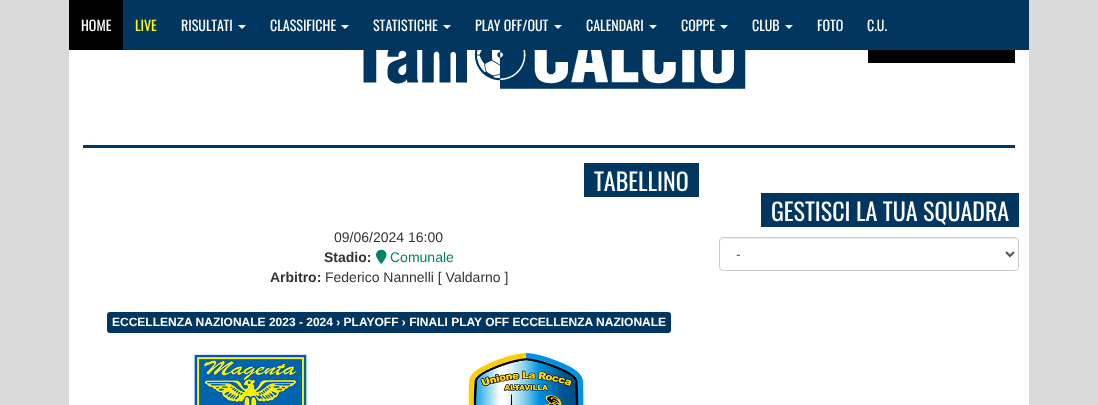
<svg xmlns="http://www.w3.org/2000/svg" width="1098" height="405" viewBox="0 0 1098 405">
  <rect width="100%" height="100%" fill="#dadada"/>
  <rect x="69" y="50" width="960" height="355" fill="#ffffff"/>
  <rect x="123" y="0" width="906" height="50" fill="#013660"/>
  <rect x="69" y="0" width="54" height="50" fill="#000000"/>
  <text x="81" y="31" font-family="Oswald" font-size="14" fill="#ffffff">HOME</text>
  <text x="135" y="31" font-family="Oswald" font-size="14" fill="#ffff00">LIVE</text>
  <text x="181" y="31" font-family="Oswald" font-size="14" fill="#ffffff">RISULTATI</text>
  <path d="M238 25H246L242 29Z" fill="#ffffff"/>
  <text x="270" y="31" font-family="Oswald" font-size="14" fill="#ffffff">CLASSIFICHE</text>
  <path d="M341 25H349L345 29Z" fill="#ffffff"/>
  <text x="373" y="31" font-family="Oswald" font-size="14" fill="#ffffff">STATISTICHE</text>
  <path d="M443 25H451L447 29Z" fill="#ffffff"/>
  <text x="475" y="31" font-family="Oswald" font-size="14" fill="#ffffff">PLAY OFF/OUT</text>
  <path d="M554 25H562L558 29Z" fill="#ffffff"/>
  <text x="586" y="31" font-family="Oswald" font-size="14" fill="#ffffff">CALENDARI</text>
  <path d="M649 25H657L653 29Z" fill="#ffffff"/>
  <text x="681" y="31" font-family="Oswald" font-size="14" fill="#ffffff">COPPE</text>
  <path d="M720 25H728L724 29Z" fill="#ffffff"/>
  <text x="752" y="31" font-family="Oswald" font-size="14" fill="#ffffff">CLUB</text>
  <path d="M785 25H793L789 29Z" fill="#ffffff"/>
  <text x="817" y="31" font-family="Oswald" font-size="14" fill="#ffffff">FOTO</text>
  <text x="867" y="31" font-family="Oswald" font-size="14" fill="#ffffff">C.U.</text>
  <image x="363" y="50" width="383" height="39" href="img1.png"/>
  <rect x="868" y="50" width="147" height="13" fill="#000000"/>
  <rect x="83" y="145" width="932" height="3" fill="#013660"/>
  <rect x="584" y="163" width="115" height="34" fill="#013660"/>
  <text x="594" y="191" font-family="Oswald" font-size="24" fill="#ffffff">TABELLINO</text>
  <text x="334" y="242" font-family="Liberation Sans" font-size="14" fill="#333333">09/06/2024 16:00</text>
  <text x="324" y="262" font-family="Liberation Sans" font-size="14" font-weight="bold" fill="#333333">Stadio:</text>
  <image x="376" y="249" width="11" height="15" href="img2.png"/>
  <text x="390" y="262" font-family="Liberation Sans" font-size="14" fill="#018264">Comunale</text>
  <text x="270" y="282" font-family="Liberation Sans" font-size="14" font-weight="bold" fill="#333333">Arbitro:</text>
  <text x="325" y="282" font-family="Liberation Sans" font-size="14" fill="#333333">Federico Nannelli [ Valdarno ]</text>
  <rect x="107" y="312" width="564" height="21" rx="3" fill="#013660"/>
  <text x="112" y="326" font-family="Liberation Sans" font-size="12" font-weight="bold" fill="#ffffff">ECCELLENZA NAZIONALE 2023 - 2024 › PLAYOFF › FINALI PLAY OFF ECCELLENZA NAZIONALE</text>
  <image x="194" y="354" width="113" height="51" href="img3.png"/>
  <image x="468" y="353" width="116" height="52" href="img4.png"/>
  <rect x="761" y="193" width="258" height="34" fill="#013660"/>
  <text x="771" y="221" font-family="Oswald" font-size="24" fill="#ffffff">GESTISCI LA TUA SQUADRA</text>
  <path d="M723 239H1015C1017 239 1018 240 1018 242L1017 239L1016 238H723C721 238 720 240 720 242C720 240 721 239 723 239Z" fill="#ececec"/>
  <rect x="719.5" y="237.5" width="299" height="33" rx="3.5" fill="none" stroke="#cccccc"/>
  <path d="M1006 252L1010 256L1014 252" fill="none" stroke="#555555" stroke-width="2"/>
  <text x="736" y="259" font-family="Liberation Sans" font-size="14" fill="#555555">-</text>
</svg>
